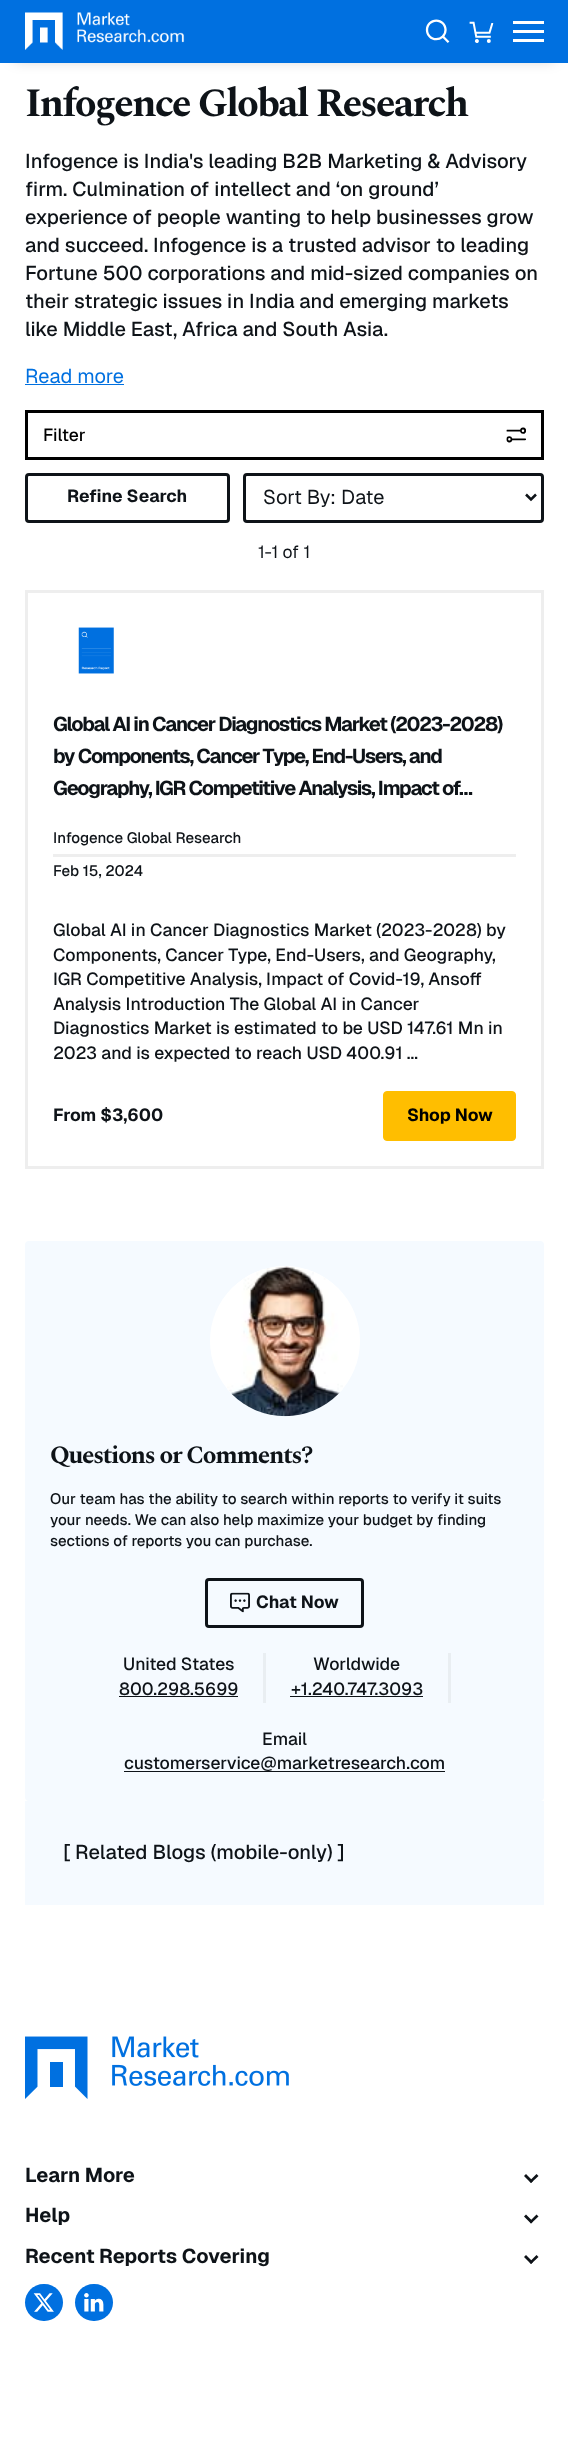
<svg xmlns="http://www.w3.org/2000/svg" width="568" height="2450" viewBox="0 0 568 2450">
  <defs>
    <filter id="blur1" x="-50%" y="-200%" width="200%" height="500%"><feGaussianBlur stdDeviation="7"/></filter>
  </defs>
  <rect width="100%" height="100%" fill="#ffffff"/>
  <rect x="14" y="25" width="541" height="35" fill="#000000" fill-opacity="0.2" filter="url(#blur1)"/>
  <rect x="0" y="0" width="568" height="63" fill="#0070e0"/>
  <image x="25" y="12" width="160" height="38" href="img1.png"/>
  <image x="425" y="19" width="25" height="24" href="img2.png"/>
  <image x="469" y="21" width="25" height="22" href="img3.png"/>
  <rect x="513" y="30" width="31" height="3" fill="#ffffff"/>
  <rect x="513" y="21" width="31" height="3" fill="#ffffff"/>
  <rect x="513" y="39" width="31" height="3" fill="#ffffff"/>
  <text x="25" y="116" font-family="Spectral" font-size="40" font-weight="bold" letter-spacing="-2" fill="#0e1318">Infogence Global Research</text>
  <text x="25" y="168" font-family="Geist" font-size="20" font-weight="500" fill="#0e1318">Infogence is India's leading B2B Marketing &amp; Advisory</text>
  <text x="25" y="196" font-family="Geist" font-size="20" font-weight="500" fill="#0e1318">firm. Culmination of intellect and ‘on ground’</text>
  <text x="25" y="224" font-family="Geist" font-size="20" font-weight="500" fill="#0e1318">experience of people wanting to help businesses grow</text>
  <text x="25" y="252" font-family="Geist" font-size="20" font-weight="500" fill="#0e1318">and succeed. Infogence is a trusted advisor to leading</text>
  <text x="25" y="280" font-family="Geist" font-size="20" font-weight="500" fill="#0e1318">Fortune 500 corporations and mid-sized companies on</text>
  <text x="25" y="308" font-family="Geist" font-size="20" font-weight="500" fill="#0e1318">their strategic issues in India and emerging markets</text>
  <text x="25" y="336" font-family="Geist" font-size="20" font-weight="500" fill="#0e1318">like Middle East, Africa and South Asia.</text>
  <text x="25" y="383" font-family="Geist" font-size="20" fill="#0070e0">Read more</text>
  <rect x="25" y="384" width="99" height="1" fill="#0070e0"/>
  <rect x="26.5" y="411.5" width="516" height="47" fill="none" stroke="#000000" stroke-width="3"/>
  <text x="43" y="441" font-family="Geist" font-size="17.5" font-weight="500" fill="#000000">Filter</text>
  <image x="506" y="427" width="20" height="16" href="img4.png"/>
  <rect x="26.5" y="474.5" width="202" height="47" rx="2.5" fill="none" stroke="#0e1318" stroke-width="3"/>
  <text x="67" y="502" font-family="Geist" font-size="17.5" font-weight="bold" fill="#0e1318">Refine Search</text>
  <rect x="244.5" y="474.5" width="298" height="47" rx="2.5" fill="none" stroke="#0e1318" stroke-width="3"/>
  <path d="M526 494.5L531 499.5L536 494.5" fill="none" stroke="#0e1318" stroke-width="2.5"/>
  <text x="263" y="504" font-family="Geist" font-size="20" fill="#0e1318">Sort By: Date</text>
  <text x="258" y="558" font-family="Geist" font-size="17.5" fill="#0e1318">1-1 of 1</text>
  <rect x="26.5" y="591.5" width="516" height="576" fill="none" stroke="#eeeeee" stroke-width="3"/>
  <image x="78" y="627" width="36" height="47" href="img5.png"/>
  <text x="53" y="731" font-family="Geist" font-size="20" font-weight="bold" letter-spacing="-1.25" fill="#0e1318">Global AI in Cancer Diagnostics Market (2023-2028)</text>
  <text x="53" y="763" font-family="Geist" font-size="20" font-weight="bold" letter-spacing="-1.25" fill="#0e1318">by Components, Cancer Type, End-Users, and</text>
  <text x="53" y="795" font-family="Geist" font-size="20" font-weight="bold" letter-spacing="-1.25" fill="#0e1318">Geography, IGR Competitive Analysis, Impact of…</text>
  <text x="53" y="843" font-family="Geist" font-size="15" font-weight="500" fill="#0e1318">Infogence Global Research</text>
  <rect x="53" y="854" width="463" height="3" fill="#eeeeee"/>
  <text x="53" y="876" font-family="Geist" font-size="15" font-weight="500" fill="#0e1318">Feb 15, 2024</text>
  <text x="53" y="936" font-family="Geist" font-size="17.5" font-weight="500" fill="#0e1318">Global AI in Cancer Diagnostics Market (2023-2028) by</text>
  <text x="53" y="961" font-family="Geist" font-size="17.5" font-weight="500" fill="#0e1318">Components, Cancer Type, End-Users, and Geography,</text>
  <text x="53" y="985" font-family="Geist" font-size="17.5" font-weight="500" fill="#0e1318">IGR Competitive Analysis, Impact of Covid-19, Ansoff</text>
  <text x="53" y="1010" font-family="Geist" font-size="17.5" font-weight="500" fill="#0e1318">Analysis Introduction The Global AI in Cancer</text>
  <text x="53" y="1034" font-family="Geist" font-size="17.5" font-weight="500" fill="#0e1318">Diagnostics Market is estimated to be USD 147.61 Mn in</text>
  <text x="53" y="1059" font-family="Geist" font-size="17.5" font-weight="500" fill="#0e1318">2023 and is expected to reach USD 400.91 ...</text>
  <text x="53" y="1121" font-family="Geist" font-size="17.5" font-weight="bold" fill="#0e1318">From $3,600</text>
  <rect x="383.5" y="1091.5" width="132" height="49" rx="3.5" fill="#ffbe00" stroke="#ffbe00"/>
  <text x="407" y="1121" font-family="Geist" font-size="17.5" font-weight="bold" fill="#000000">Shop Now</text>
  <rect x="25" y="1241" width="519" height="560" rx="4" fill="#f5faff"/>
  <circle cx="285" cy="1341" r="75" fill="#ffffff"/>
  <image x="227" y="1266" width="116" height="151" href="img6.png"/>
  <text x="50" y="1463" font-family="Spectral" font-size="25" font-weight="bold" letter-spacing="-1.25" fill="#0e1318">Questions or Comments?</text>
  <text x="50" y="1504" font-family="Geist" font-size="15" font-weight="500" fill="#0e1318">Our team has the ability to search within reports to verify it suits</text>
  <text x="50" y="1525" font-family="Geist" font-size="15" font-weight="500" fill="#0e1318">your needs. We can also help maximize your budget by finding</text>
  <text x="50" y="1546" font-family="Geist" font-size="15" font-weight="500" fill="#0e1318">sections of reports you can purchase.</text>
  <rect x="206.5" y="1579.5" width="156" height="47" rx="2.5" fill="none" stroke="#0e1318" stroke-width="3"/>
  <image x="230" y="1592" width="20" height="21" href="img7.png"/>
  <text x="256" y="1608" font-family="Geist" font-size="17.5" font-weight="bold" fill="#0e1318">Chat Now</text>
  <text x="123" y="1670" font-family="Geist" font-size="17.5" font-weight="500" fill="#0e1318">United States</text>
  <text x="119" y="1695" font-family="Geist" font-size="17.5" font-weight="500" fill="#0e1318">800.298.5699</text>
  <rect x="119" y="1696" width="119" height="1" fill="#0e1318"/>
  <rect x="263" y="1653" width="3" height="50" fill="#e9eef2"/>
  <text x="313" y="1670" font-family="Geist" font-size="17.5" font-weight="500" fill="#0e1318">Worldwide</text>
  <text x="291" y="1695" font-family="Geist" font-size="17.5" font-weight="500" fill="#0e1318">+1.240.747.3093</text>
  <rect x="290" y="1696" width="133" height="1" fill="#0e1318"/>
  <rect x="448" y="1653" width="3" height="50" fill="#e9eef2"/>
  <text x="262" y="1745" font-family="Geist" font-size="17.5" font-weight="500" fill="#0e1318">Email</text>
  <text x="124" y="1769" font-family="Geist" font-size="17.5" font-weight="500" fill="#0e1318">customerservice@marketresearch.com</text>
  <rect x="124" y="1771" width="321" height="1" fill="#0e1318"/>
  <rect x="25" y="1801" width="519" height="104" fill="#f5faff"/>
  <text x="63" y="1859" font-family="Geist" font-size="20" font-weight="500" fill="#0e1318">[ Related Blogs (mobile-only) ]</text>
  <image x="25" y="2036" width="264" height="63" href="img8.png"/>
  <text x="25" y="2182" font-family="Geist" font-size="20" font-weight="bold" fill="#0e1318">Learn More</text>
  <path d="M536.5 2174L538.5 2176L531 2183L529.5 2181Z" fill="#0e1318"/>
  <path d="M526 2174L533 2181L531 2183L524 2176ZM536.5 2214.5L538.5 2216.5L531 2223.5L529.5 2221.5Z" fill="#0e1318"/>
  <text x="25" y="2222" font-family="Geist" font-size="20" font-weight="bold" fill="#0e1318">Help</text>
  <path d="M526 2214.5L533 2221.5L531 2223.5L524 2216.5ZM536.5 2255L538.5 2257L531 2264L529.5 2262Z" fill="#0e1318"/>
  <text x="25" y="2263" font-family="Geist" font-size="20" font-weight="bold" fill="#0e1318">Recent Reports Covering</text>
  <path d="M526 2255L533 2262L531 2264L524 2257Z" fill="#0e1318"/>
  <rect x="25" y="2284" width="38" height="37" rx="18.5" fill="#0070e0"/>
  <image x="33" y="2293" width="21" height="19" href="img9.png"/>
  <rect x="75" y="2284" width="38" height="37" rx="18.5" fill="#0070e0"/>
  <image x="84" y="2293" width="20" height="19" href="img10.png"/>
</svg>
